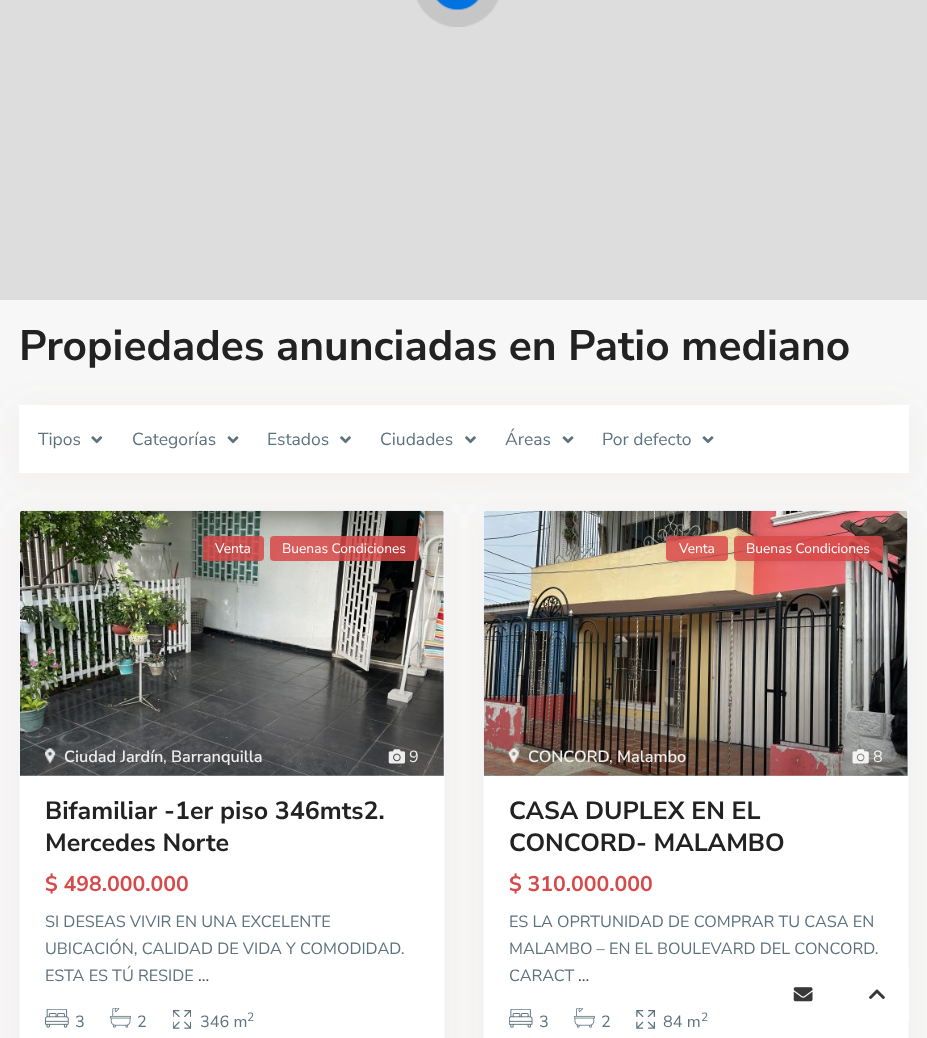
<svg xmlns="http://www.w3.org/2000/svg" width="927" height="1038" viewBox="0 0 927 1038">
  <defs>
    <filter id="blur1" x="-50%" y="-200%" width="200%" height="500%"><feGaussianBlur stdDeviation="15.5"/></filter>
    <linearGradient id="g1" gradientUnits="userSpaceOnUse" x1="232" y1="776" x2="232" y2="511"><stop offset="0" stop-color="#000000" stop-opacity="0.34"/><stop offset="0.56" stop-color="#000000" stop-opacity="0"/></linearGradient>
    <clipPath id="clip1"><path d="M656 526H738V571H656ZM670 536H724C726 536 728 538 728 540V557C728 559 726 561 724 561H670C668 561 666 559 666 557V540C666 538 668 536 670 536Z" clip-rule="evenodd"/></clipPath>
    <filter id="blur2" x="-50%" y="-200%" width="200%" height="500%"><feGaussianBlur stdDeviation="3"/></filter>
    <clipPath id="clip2"><path d="M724 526H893V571H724ZM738 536H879C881 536 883 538 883 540V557C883 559 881 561 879 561H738C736 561 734 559 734 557V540C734 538 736 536 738 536Z" clip-rule="evenodd"/></clipPath>
    <linearGradient id="g2" gradientUnits="userSpaceOnUse" x1="696" y1="776" x2="696" y2="511"><stop offset="0" stop-color="#000000" stop-opacity="0.34"/><stop offset="0.56" stop-color="#000000" stop-opacity="0"/></linearGradient>
  </defs>
  <rect width="100%" height="100%" fill="#f7f7f7"/>
  <rect x="0" y="0" width="927" height="300" fill="#dddddd"/>
  <image x="416" y="0" width="83" height="27" href="img1.png"/>
  <text x="19" y="360" font-family="Nunito Sans" font-size="42.5" font-weight="bold" fill="#222222">Propiedades anunciadas en Patio mediano</text>
  <rect x="19" y="409" width="890" height="67" fill="#b89c79" fill-opacity="0.1" filter="url(#blur1)"/>
  <rect x="19" y="405" width="890" height="68" fill="#ffffff"/>
  <text x="38" y="445" font-family="Nunito Sans" font-size="17.5" fill="#5c727d">Tipos</text>
  <image x="91" y="436" width="12" height="8" href="img2.png"/>
  <text x="132" y="445" font-family="Nunito Sans" font-size="17.5" fill="#5c727d">Categorías</text>
  <image x="227" y="436" width="12" height="8" href="img3.png"/>
  <text x="267" y="445" font-family="Nunito Sans" font-size="17.5" fill="#5c727d">Estados</text>
  <image x="340" y="436" width="11" height="8" href="img4.png"/>
  <text x="380" y="445" font-family="Nunito Sans" font-size="17.5" fill="#5c727d">Ciudades</text>
  <image x="465" y="436" width="11" height="8" href="img4.png"/>
  <text x="505" y="445" font-family="Nunito Sans" font-size="17.5" fill="#5c727d">Áreas</text>
  <image x="562" y="436" width="12" height="8" href="img3.png"/>
  <text x="602" y="445" font-family="Nunito Sans" font-size="17.5" fill="#5c727d">Por defecto</text>
  <image x="702" y="436" width="12" height="8" href="img3.png"/>
  <rect x="19" y="514" width="426" height="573" rx="2.5" fill="#b89c79" fill-opacity="0.1" filter="url(#blur1)"/>
  <rect x="19.5" y="510.5" width="425" height="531" rx="2" fill="#ffffff" stroke="#f1f8ff"/>
  <image x="20" y="510" width="424" height="266" href="img5.png"/>
  <rect x="203" y="536" width="61" height="25" rx="4" fill="#d84949" fill-opacity="0.85"/>
  <text x="215" y="553" font-family="Nunito Sans" font-size="13.75" fill="#ffffff">Venta</text>
  <rect x="270" y="536" width="149" height="25" rx="4" fill="#d84949" fill-opacity="0.85"/>
  <text x="282" y="553" font-family="Nunito Sans" font-size="13.75" fill="#ffffff">Buenas Condiciones</text>
  <rect x="483" y="514" width="426" height="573" rx="2.5" fill="#b89c79" fill-opacity="0.1" filter="url(#blur1)"/>
  <rect x="20" y="637" width="424" height="139" fill="url(#g1)"/>
  <image x="45" y="748" width="11" height="16" href="img6.png"/>
  <text x="64" y="762" font-family="Nunito Sans" font-size="16.25" font-weight="600" fill="#eeeeed">Ciudad Jardín</text>
  <text x="163" y="762" font-family="Nunito Sans" font-size="16.25" fill="#eeeeed">,</text>
  <text x="171" y="762" font-family="Nunito Sans" font-size="16.25" font-weight="600" fill="#eeeeed">Barranquilla</text>
  <image x="388" y="749" width="17" height="15" href="img7.png"/>
  <text x="409" y="762" font-family="Nunito Sans" font-size="16.25" fill="#eeeeed">9</text>
  <text x="45" y="819" font-family="Nunito Sans" font-size="25" font-weight="bold" fill="#222222">Bifamiliar -1er piso 346mts2.</text>
  <text x="45" y="851" font-family="Nunito Sans" font-size="25" font-weight="bold" fill="#222222">Mercedes Norte</text>
  <text x="45" y="891" font-family="Nunito Sans" font-size="21.25" font-weight="bold" fill="#d84949">$ 498.000.000</text>
  <text x="45" y="927" font-family="Nunito Sans" font-size="16.25" fill="#5c727d">SI DESEAS VIVIR EN UNA EXCELENTE</text>
  <text x="45" y="954" font-family="Nunito Sans" font-size="16.25" fill="#5c727d">UBICACIÓN, CALIDAD DE VIDA Y COMODIDAD.</text>
  <text x="45" y="981" font-family="Nunito Sans" font-size="16.25" fill="#5c727d">ESTA ES TÚ RESIDE</text>
  <text x="198" y="981" font-family="Nunito Sans" font-size="16.25" fill="#444444">...</text>
  <image x="45" y="1009" width="24" height="19" href="img8.png"/>
  <text x="75" y="1027" font-family="Nunito Sans" font-size="16.25" fill="#5c727d">3</text>
  <image x="110" y="1008" width="21" height="20" href="img9.png"/>
  <text x="137" y="1027" font-family="Nunito Sans" font-size="16.25" fill="#5c727d">2</text>
  <image x="173" y="1010" width="18" height="19" href="img10.png"/>
  <text x="200" y="1027" font-family="Nunito Sans" font-size="16.25" fill="#5c727d">346 m</text>
  <text x="247" y="1021" font-family="Nunito Sans" font-size="12" fill="#5c727d">2</text>
  <rect x="483.5" y="510.5" width="425" height="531" rx="2" fill="#ffffff" stroke="#f1f8ff"/>
  <image x="483" y="510" width="425" height="266" href="img11.png"/>
  <g clip-path="url(#clip1)">
    <rect x="666" y="536" width="62" height="25" rx="4" fill="#000000" fill-opacity="0.1" filter="url(#blur2)"/>
  </g>
  <rect x="666" y="536" width="62" height="25" rx="4" fill="#d84949" fill-opacity="0.85"/>
  <text x="679" y="553" font-family="Nunito Sans" font-size="13.75" fill="#ffffff">Venta</text>
  <g clip-path="url(#clip2)">
    <rect x="734" y="536" width="149" height="25" rx="4" fill="#000000" fill-opacity="0.1" filter="url(#blur2)"/>
  </g>
  <rect x="734" y="536" width="149" height="25" rx="4" fill="#d84949" fill-opacity="0.85"/>
  <text x="746" y="553" font-family="Nunito Sans" font-size="13.75" fill="#ffffff">Buenas Condiciones</text>
  <rect x="484" y="637" width="424" height="139" fill="url(#g2)"/>
  <image x="508" y="748" width="11" height="16" href="img12.png"/>
  <text x="528" y="762" font-family="Nunito Sans" font-size="16.25" font-weight="600" fill="#eeeeed">CONCORD</text>
  <text x="609" y="762" font-family="Nunito Sans" font-size="16.25" fill="#eeeeed">,</text>
  <text x="617" y="762" font-family="Nunito Sans" font-size="16.25" font-weight="600" fill="#eeeeed">Malambo</text>
  <image x="852" y="749" width="17" height="15" href="img13.png"/>
  <text x="873" y="762" font-family="Nunito Sans" font-size="16.25" fill="#f3f3f3">8</text>
  <text x="509" y="819" font-family="Nunito Sans" font-size="25" font-weight="bold" fill="#222222">CASA DUPLEX EN EL</text>
  <text x="509" y="851" font-family="Nunito Sans" font-size="25" font-weight="bold" fill="#222222">CONCORD- MALAMBO</text>
  <text x="509" y="891" font-family="Nunito Sans" font-size="21.25" font-weight="bold" fill="#d84949">$ 310.000.000</text>
  <text x="509" y="927" font-family="Nunito Sans" font-size="16.25" fill="#5c727d">ES LA OPRTUNIDAD DE COMPRAR TU CASA EN</text>
  <text x="509" y="954" font-family="Nunito Sans" font-size="16.25" fill="#5c727d">MALAMBO – EN EL BOULEVARD DEL CONCORD.</text>
  <text x="509" y="981" font-family="Nunito Sans" font-size="16.25" fill="#5c727d">CARACT</text>
  <text x="578" y="981" font-family="Nunito Sans" font-size="16.25" fill="#444444">...</text>
  <image x="509" y="1009" width="24" height="19" href="img14.png"/>
  <text x="539" y="1027" font-family="Nunito Sans" font-size="16.25" fill="#5c727d">3</text>
  <image x="574" y="1008" width="21" height="20" href="img15.png"/>
  <text x="601" y="1027" font-family="Nunito Sans" font-size="16.25" fill="#5c727d">2</text>
  <image x="636" y="1010" width="19" height="19" href="img16.png"/>
  <text x="663" y="1027" font-family="Nunito Sans" font-size="16.25" fill="#5c727d">84 m</text>
  <text x="701" y="1021" font-family="Nunito Sans" font-size="12" fill="#5c727d">2</text>
  <image x="793" y="987" width="20" height="15" href="img17.png"/>
  <rect x="846" y="964" width="63" height="62" rx="6" fill="#ffffff" fill-opacity="0.9"/>
  <image x="869" y="989" width="16" height="10" href="img18.png"/>
</svg>
